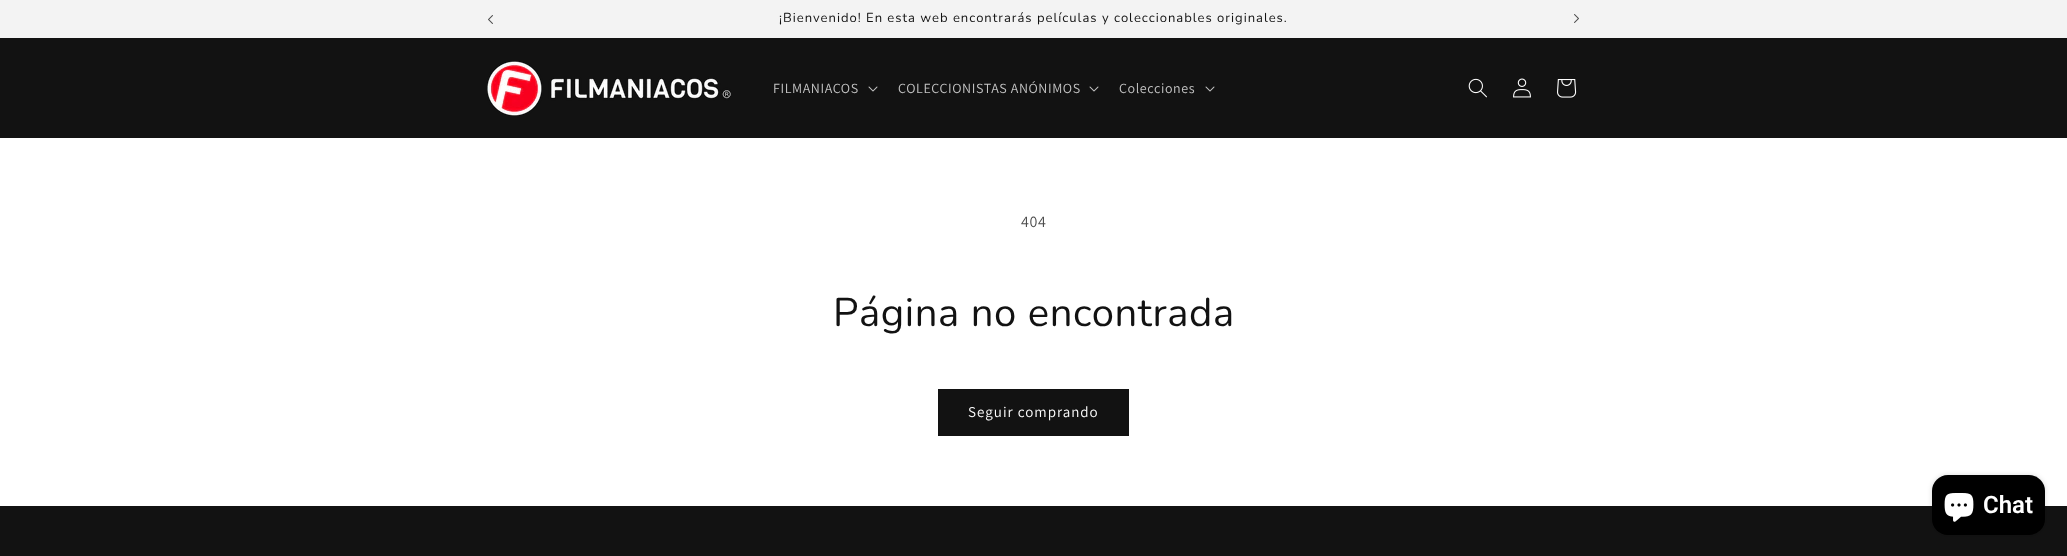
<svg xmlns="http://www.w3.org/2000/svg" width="2067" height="556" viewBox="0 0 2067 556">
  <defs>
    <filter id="blur1" x="-50%" y="-200%" width="200%" height="500%"><feGaussianBlur stdDeviation="2.5"/></filter>
  </defs>
  <rect width="100%" height="100%" fill="#ffffff"/>
  <rect x="0" y="0" width="2067" height="38" fill="#f3f3f3"/>
  <image x="488" y="15" width="5" height="9" href="img1.png"/>
  <text x="779" y="22" font-family="Nunito" font-size="13" letter-spacing="1" fill="#121212">¡Bienvenido! En esta web encontrarás películas y coleccionables originales.</text>
  <image x="1574" y="14" width="5" height="9" href="img2.png"/>
  <rect x="0" y="38" width="2067" height="100" fill="#121212"/>
  <image x="487" y="61" width="244" height="55" href="img3.png"/>
  <text x="773" y="93" font-family="Assistant" font-size="14" letter-spacing="0.6" fill="#c4c4c4">FILMANIACOS</text>
  <image x="868" y="86" width="10" height="6" href="img4.png"/>
  <text x="898" y="93" font-family="Assistant" font-size="14" letter-spacing="0.6" fill="#c4c4c4">COLECCIONISTAS ANÓNIMOS</text>
  <image x="1089" y="86" width="10" height="6" href="img4.png"/>
  <text x="1119" y="93" font-family="Assistant" font-size="14" letter-spacing="0.6" fill="#c4c4c4">Colecciones</text>
  <image x="1205" y="86" width="10" height="6" href="img4.png"/>
  <image x="1468" y="78" width="19" height="20" href="img5.png"/>
  <image x="1513" y="78" width="18" height="20" href="img6.png"/>
  <image x="1557" y="79" width="20" height="19" href="img7.png"/>
  <text x="1021" y="227" font-family="Assistant" font-size="16" letter-spacing="0.6" fill="#4d4d4d">404</text>
  <text x="833" y="326" font-family="Nunito" font-size="40" letter-spacing="0.6" fill="#121212">Página no encontrada</text>
  <rect x="938" y="389" width="191" height="47" fill="#121212"/>
  <text x="968" y="417" font-family="Assistant" font-size="15" letter-spacing="1" fill="#ffffff">Seguir comprando</text>
  <rect x="0" y="506" width="2067" height="50" fill="#121212"/>
  <rect x="1932" y="475" width="113" height="60" rx="16" fill="#000000" fill-opacity="0.15" filter="url(#blur1)"/>
  <rect x="1932" y="475" width="113" height="60" rx="16" fill="#000000"/>
  <image x="1944" y="493" width="30" height="29" href="img8.png"/>
  <text x="1983" y="513" font-family="Roboto" font-size="24" font-weight="600" fill="#ffffff">Chat</text>
</svg>
